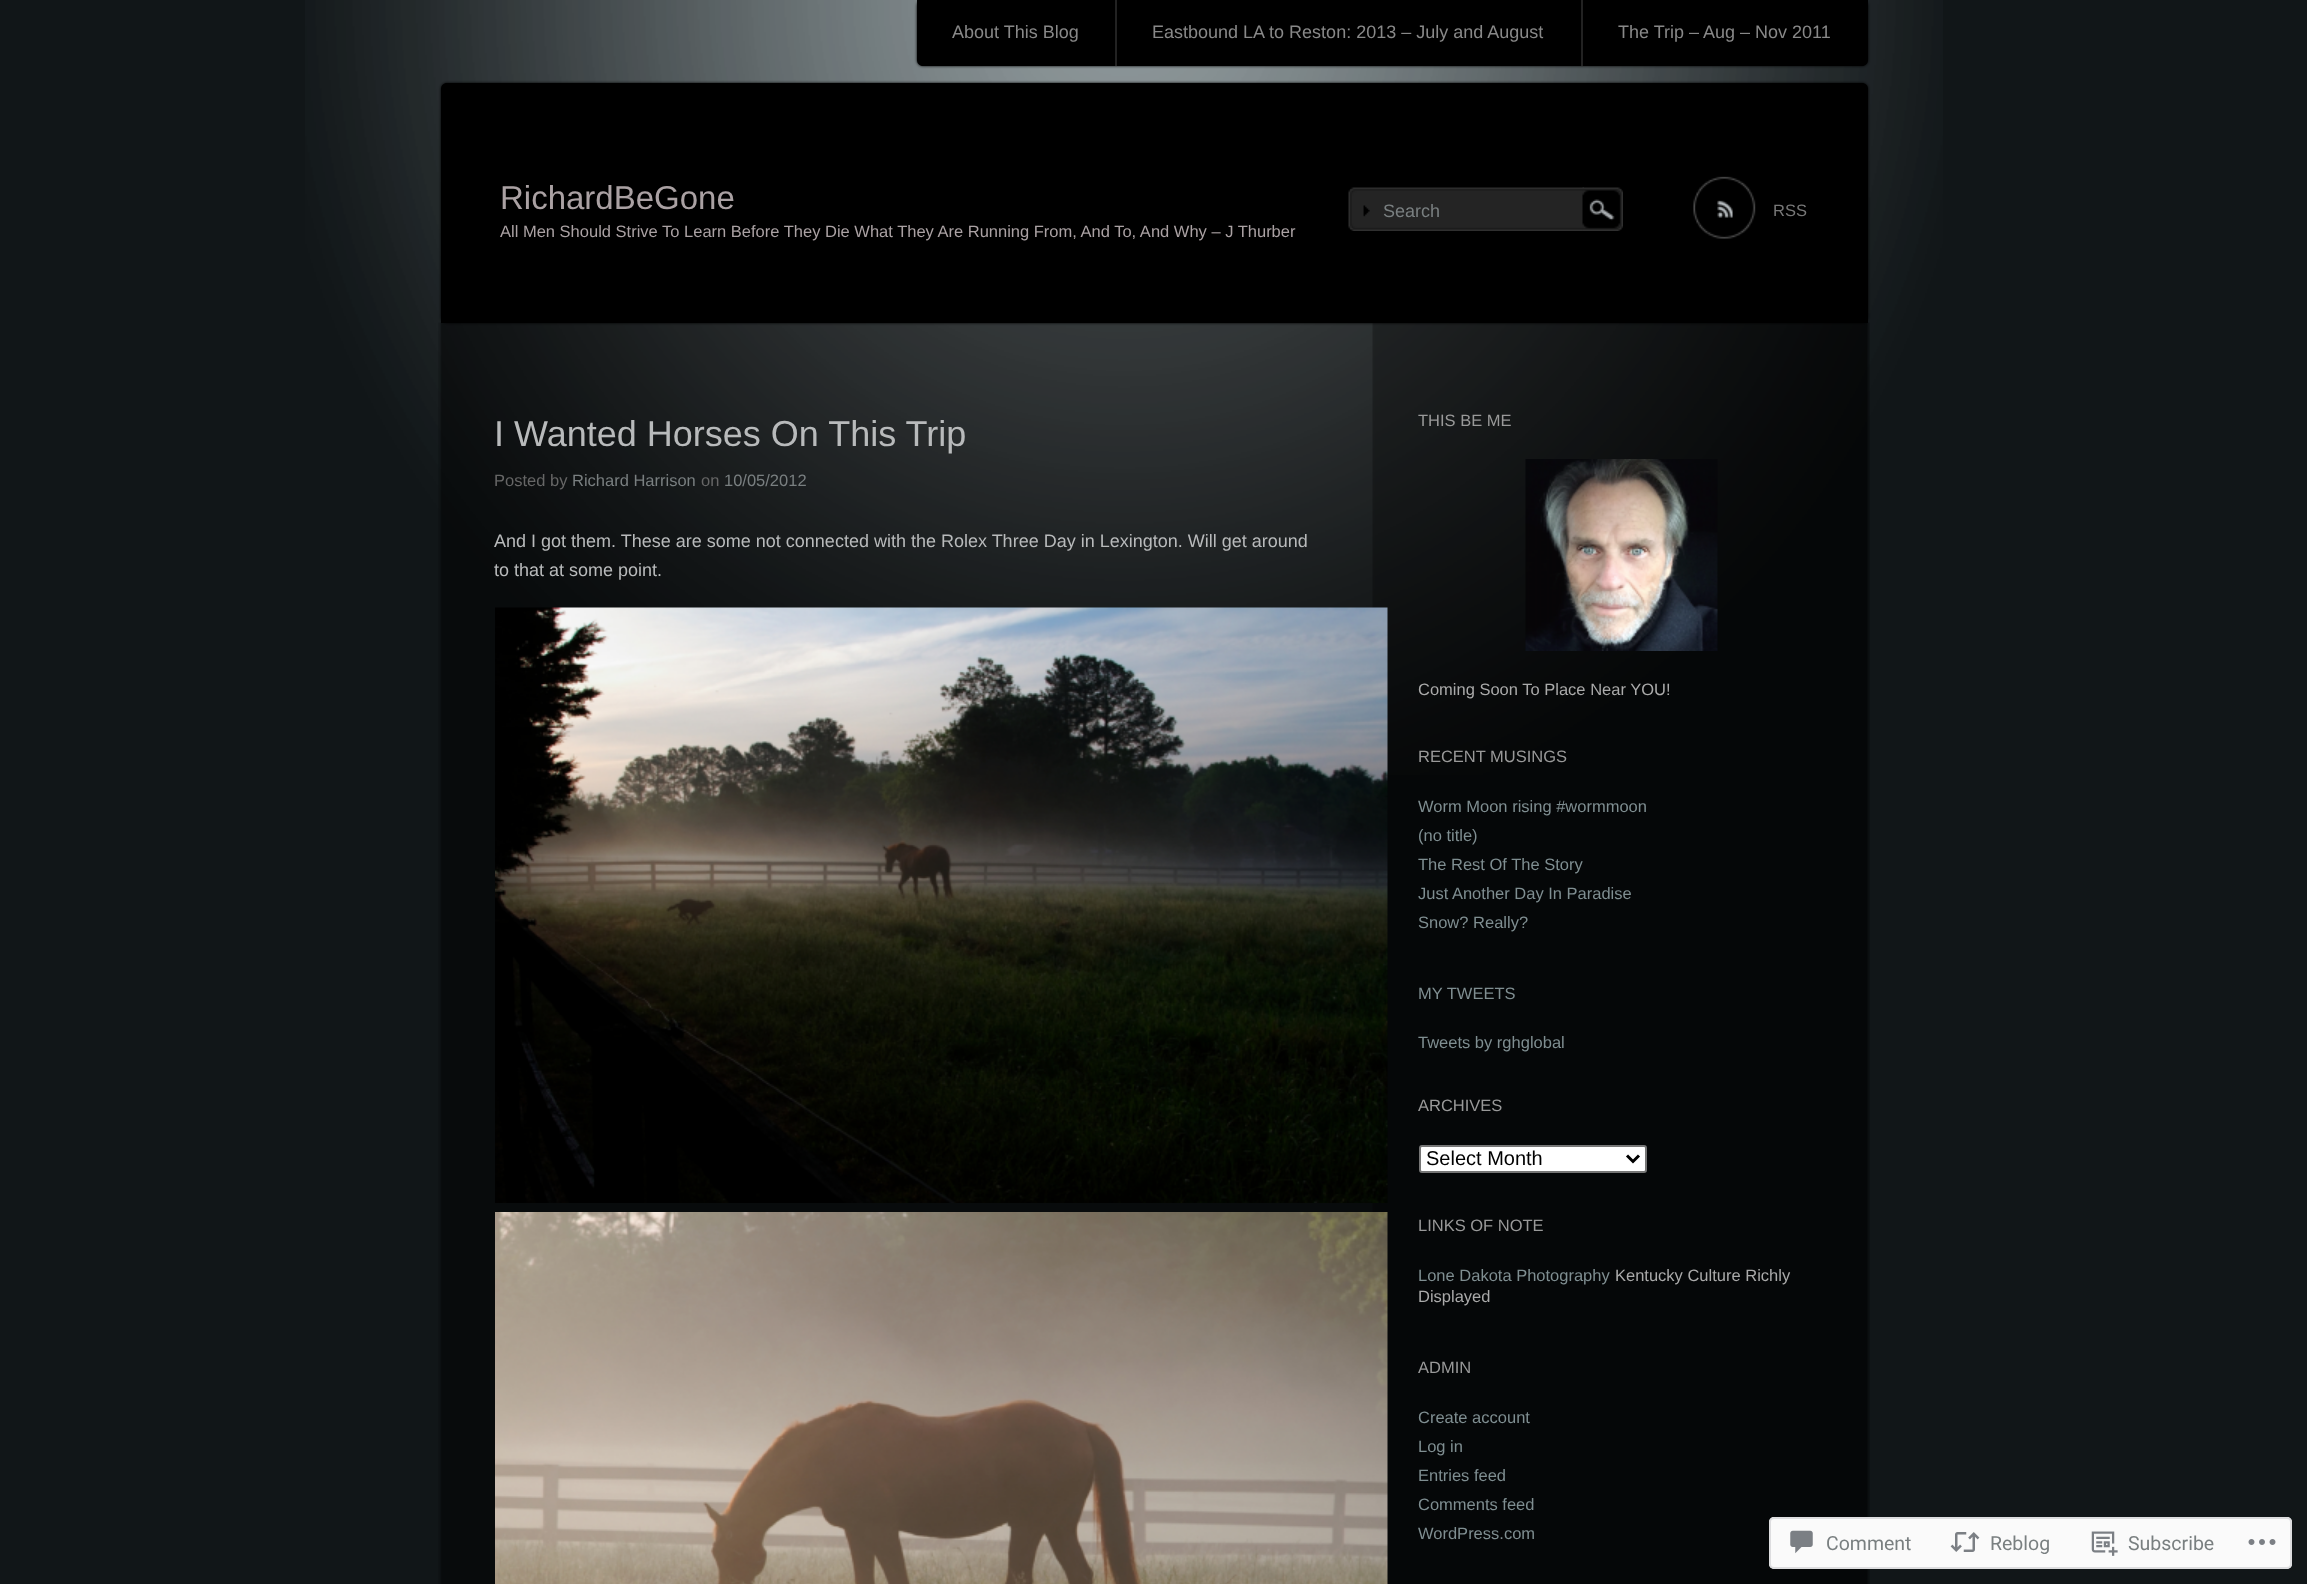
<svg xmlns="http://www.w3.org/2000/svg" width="2307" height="1584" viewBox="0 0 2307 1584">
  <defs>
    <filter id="blur1" x="-50%" y="-200%" width="200%" height="500%"><feGaussianBlur stdDeviation="1.5"/></filter>
  </defs>
  <rect width="100%" height="100%" fill="#111618"/>
  <image x="305" y="0" width="1638" height="775" href="img1.png"/>
  <rect x="917" y="0" width="951" height="66" rx="6" fill="#000000" filter="url(#blur1)"/>
  <path d="M917 0H1868V60C1868 63.5 1865.5 66 1862 66H923C919.5 66 917 63.5 917 60Z" fill="#000000"/>
  <text x="952" y="38" font-family="Liberation Sans" font-size="18" fill="#888888">About This Blog</text>
  <rect x="1115" y="0" width="2" height="66" fill="#222222"/>
  <text x="1152" y="38" font-family="Liberation Sans" font-size="18" fill="#888888">Eastbound LA to Reston: 2013 – July and August</text>
  <rect x="1581" y="0" width="2" height="66" fill="#222222"/>
  <text x="1618" y="38" font-family="Liberation Sans" font-size="18" fill="#888888">The Trip – Aug – Nov 2011</text>
  <image x="438" y="322" width="1432" height="1262" href="img5.png"/>
  <rect x="441" y="83" width="1427" height="240" rx="6" fill="#000000" filter="url(#blur1)"/>
  <path d="M447 83H1862C1865.5 83 1868 85.5 1868 89V323H441V89C441 85.5 443.5 83 447 83Z" fill="#000000"/>
  <text x="500" y="209" font-family="Liberation Sans" font-size="33" fill="#aaa1a3">RichardBeGone</text>
  <text x="500" y="237" font-family="Liberation Sans" font-size="16.5" fill="#aaa1a3">All Men Should Strive To Learn Before They Die What They Are Running From, And To, And Why – J Thurber</text>
  <image x="1348" y="187" width="236" height="44" href="img2.png"/>
  <text x="1383" y="217" font-family="Liberation Sans" font-size="18" fill="#797f80">Search</text>
  <image x="1582" y="187" width="41" height="44" href="img3.png"/>
  <image x="1693" y="176" width="63" height="63" href="img4.png"/>
  <text x="1773" y="216" font-family="Liberation Sans" font-size="16.5" fill="#777777">RSS</text>
  <text x="494" y="446" font-family="Liberation Sans" font-size="36" fill="#b8babb">I Wanted Horses On This Trip</text>
  <text x="494" y="486" font-family="Liberation Sans" font-size="16.5" fill="#666666">Posted by</text>
  <text x="572" y="486" font-family="Liberation Sans" font-size="16.5" fill="#797f80">Richard Harrison</text>
  <text x="701" y="486" font-family="Liberation Sans" font-size="16.5" fill="#666666">on</text>
  <text x="724" y="486" font-family="Liberation Sans" font-size="16.5" fill="#797f80">10/05/2012</text>
  <text x="494" y="547" font-family="Liberation Sans" font-size="18" fill="#b8babb">And I got them. These are some not connected with the Rolex Three Day in Lexington. Will get around</text>
  <text x="494" y="576" font-family="Liberation Sans" font-size="18" fill="#b8babb">to that at some point.</text>
  <image x="495" y="607" width="893" height="596" href="img6.png"/>
  <image x="495" y="1212" width="893" height="372" href="img7.png"/>
  <text x="1418" y="426" font-family="Liberation Sans" font-size="16.5" fill="#999999">THIS BE ME</text>
  <image x="1525" y="459" width="193" height="192" href="img8.png"/>
  <text x="1418" y="695" font-family="Liberation Sans" font-size="16.5" fill="#aaaaaa">Coming Soon To Place Near YOU!</text>
  <text x="1418" y="762" font-family="Liberation Sans" font-size="16.5" fill="#999999">RECENT MUSINGS</text>
  <text x="1418" y="812" font-family="Liberation Sans" font-size="16.5" fill="#7f8e91">Worm Moon rising #wormmoon</text>
  <text x="1418" y="841" font-family="Liberation Sans" font-size="16.5" fill="#7f8e91">(no title)</text>
  <text x="1418" y="870" font-family="Liberation Sans" font-size="16.5" fill="#7f8e91">The Rest Of The Story</text>
  <text x="1418" y="899" font-family="Liberation Sans" font-size="16.5" fill="#7f8e91">Just Another Day In Paradise</text>
  <text x="1418" y="928" font-family="Liberation Sans" font-size="16.5" fill="#7f8e91">Snow? Really?</text>
  <text x="1418" y="999" font-family="Liberation Sans" font-size="16.5" fill="#7f8e91">MY TWEETS</text>
  <text x="1418" y="1048" font-family="Liberation Sans" font-size="16.5" fill="#7f8e91">Tweets by rghglobal</text>
  <text x="1418" y="1111" font-family="Liberation Sans" font-size="16.5" fill="#999999">ARCHIVES</text>
  <rect x="1420" y="1146" width="226" height="26" rx="2" fill="#ffffff" stroke="#767676" stroke-width="2"/>
  <path d="M1627 1155.5L1633 1161.5L1639 1155.5" fill="none" stroke="#000000" stroke-width="3"/>
  <text x="1426" y="1165" font-family="Liberation Sans" font-size="20" fill="#000000">Select Month</text>
  <text x="1418" y="1231" font-family="Liberation Sans" font-size="16.5" fill="#999999">LINKS OF NOTE</text>
  <text x="1418" y="1281" font-family="Liberation Sans" font-size="16.5" fill="#7f8e91">Lone Dakota Photography</text>
  <text x="1615" y="1281" font-family="Liberation Sans" font-size="16.5" fill="#aaaaaa">Kentucky Culture Richly</text>
  <text x="1418" y="1302" font-family="Liberation Sans" font-size="16.5" fill="#aaaaaa">Displayed</text>
  <text x="1418" y="1373" font-family="Liberation Sans" font-size="16.5" fill="#999999">ADMIN</text>
  <text x="1418" y="1423" font-family="Liberation Sans" font-size="16.5" fill="#7f8e91">Create account</text>
  <text x="1418" y="1452" font-family="Liberation Sans" font-size="16.5" fill="#7f8e91">Log in</text>
  <text x="1418" y="1481" font-family="Liberation Sans" font-size="16.5" fill="#7f8e91">Entries feed</text>
  <text x="1418" y="1510" font-family="Liberation Sans" font-size="16.5" fill="#7f8e91">Comments feed</text>
  <text x="1418" y="1539" font-family="Liberation Sans" font-size="16.5" fill="#7f8e91">WordPress.com</text>
  <rect x="1769" y="1517" width="523" height="52" rx="5" fill="#ffffff" fill-opacity="0.98"/>
  <rect x="1770" y="1518" width="521" height="50" rx="4" fill="none" stroke="#dcdcde" stroke-opacity="0.98" stroke-width="2"/>
  <image x="1790" y="1530" width="23" height="24" href="img9.png"/>
  <text x="1826" y="1550" font-family="Roboto" font-size="19.5" fill="#797f80">Comment</text>
  <image x="1950" y="1532" width="30" height="20" href="img10.png"/>
  <text x="1990" y="1550" font-family="Roboto" font-size="19.5" fill="#797f80">Reblog</text>
  <image x="2091" y="1531" width="27" height="25" href="img11.png"/>
  <text x="2128" y="1550" font-family="Roboto" font-size="19.5" fill="#797f80">Subscribe</text>
  <image x="2248" y="1539" width="28" height="6" href="img12.png"/>
</svg>
